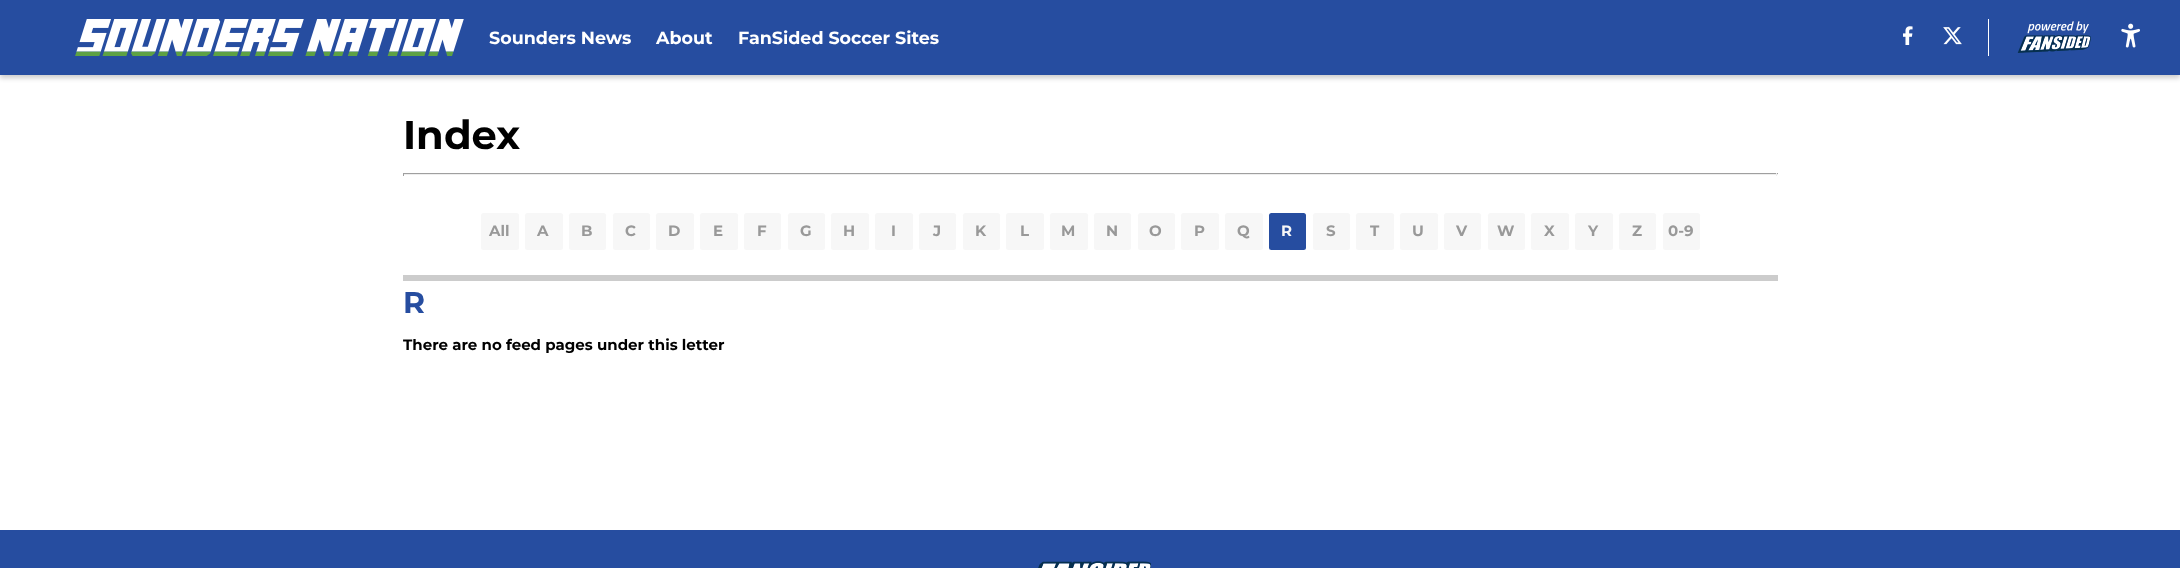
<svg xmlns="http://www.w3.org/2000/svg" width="2180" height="568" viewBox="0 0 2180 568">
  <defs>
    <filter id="blur1" x="-50%" y="-200%" width="200%" height="500%"><feGaussianBlur stdDeviation="2.5"/></filter>
  </defs>
  <rect width="100%" height="100%" fill="#ffffff"/>
  <rect x="0" y="3" width="2180" height="75" fill="#000000" fill-opacity="0.2" filter="url(#blur1)"/>
  <rect x="0" y="0" width="2180" height="75" fill="#264da0"/>
  <image x="75" y="19" width="389" height="37" href="img1.png"/>
  <text x="489" y="44" font-family="Montserrat" font-size="17.5" font-weight="bold" fill="#ffffff">Sounders News</text>
  <text x="656" y="44" font-family="Montserrat" font-size="17.5" font-weight="bold" fill="#ffffff">About</text>
  <text x="738" y="44" font-family="Montserrat" font-size="17.5" font-weight="bold" fill="#ffffff">FanSided Soccer Sites</text>
  <image x="1903" y="26" width="10" height="19" href="img2.png"/>
  <image x="1943" y="27" width="19" height="18" href="img3.png"/>
  <rect x="1988" y="19" width="1" height="37" fill="#ffffff"/>
  <image x="2017" y="21" width="74" height="32" href="img4.png"/>
  <image x="2121" y="23" width="19" height="25" href="img5.png"/>
  <text x="403" y="149" font-family="Montserrat" font-size="40" font-weight="bold" fill="#000000">Index</text>
  <rect x="403" y="173" width="1375" height="1" fill="#9f9f9f"/>
  <rect x="1776" y="173" width="1" height="3" fill="#eeeeee"/>
  <rect x="403" y="174" width="1375" height="1" fill="#eeeeee"/>
  <rect x="403" y="173" width="1" height="3" fill="#9f9f9f"/>
  <rect x="481" y="213" width="38" height="37" rx="2.5" fill="#f7f7f7"/>
  <text x="489" y="236" font-family="Montserrat" font-size="15" font-weight="bold" fill="#999999">All</text>
  <rect x="525" y="213" width="38" height="37" rx="2.5" fill="#f7f7f7"/>
  <text x="537" y="236" font-family="Montserrat" font-size="15" font-weight="bold" fill="#999999">A</text>
  <rect x="569" y="213" width="37" height="37" rx="2.5" fill="#f7f7f7"/>
  <text x="581" y="236" font-family="Montserrat" font-size="15" font-weight="bold" fill="#999999">B</text>
  <rect x="613" y="213" width="37" height="37" rx="2.5" fill="#f7f7f7"/>
  <text x="625" y="236" font-family="Montserrat" font-size="15" font-weight="bold" fill="#999999">C</text>
  <rect x="656" y="213" width="38" height="37" rx="2.5" fill="#f7f7f7"/>
  <text x="668" y="236" font-family="Montserrat" font-size="15" font-weight="bold" fill="#999999">D</text>
  <rect x="700" y="213" width="38" height="37" rx="2.5" fill="#f7f7f7"/>
  <text x="713" y="236" font-family="Montserrat" font-size="15" font-weight="bold" fill="#999999">E</text>
  <rect x="744" y="213" width="37" height="37" rx="2.5" fill="#f7f7f7"/>
  <text x="757" y="236" font-family="Montserrat" font-size="15" font-weight="bold" fill="#999999">F</text>
  <rect x="788" y="213" width="37" height="37" rx="2.5" fill="#f7f7f7"/>
  <text x="800" y="236" font-family="Montserrat" font-size="15" font-weight="bold" fill="#999999">G</text>
  <rect x="831" y="213" width="38" height="37" rx="2.5" fill="#f7f7f7"/>
  <text x="843" y="236" font-family="Montserrat" font-size="15" font-weight="bold" fill="#999999">H</text>
  <rect x="875" y="213" width="38" height="37" rx="2.5" fill="#f7f7f7"/>
  <text x="891" y="236" font-family="Montserrat" font-size="15" font-weight="bold" fill="#999999">I</text>
  <rect x="919" y="213" width="37" height="37" rx="2.5" fill="#f7f7f7"/>
  <text x="933" y="236" font-family="Montserrat" font-size="15" font-weight="bold" fill="#999999">J</text>
  <rect x="963" y="213" width="37" height="37" rx="2.5" fill="#f7f7f7"/>
  <text x="975" y="236" font-family="Montserrat" font-size="15" font-weight="bold" fill="#999999">K</text>
  <rect x="1006" y="213" width="38" height="37" rx="2.5" fill="#f7f7f7"/>
  <text x="1020" y="236" font-family="Montserrat" font-size="15" font-weight="bold" fill="#999999">L</text>
  <rect x="1050" y="213" width="38" height="37" rx="2.5" fill="#f7f7f7"/>
  <text x="1061" y="236" font-family="Montserrat" font-size="15" font-weight="bold" fill="#999999">M</text>
  <rect x="1094" y="213" width="37" height="37" rx="2.5" fill="#f7f7f7"/>
  <text x="1106" y="236" font-family="Montserrat" font-size="15" font-weight="bold" fill="#999999">N</text>
  <rect x="1138" y="213" width="37" height="37" rx="2.5" fill="#f7f7f7"/>
  <text x="1149" y="236" font-family="Montserrat" font-size="15" font-weight="bold" fill="#999999">O</text>
  <rect x="1181" y="213" width="38" height="37" rx="2.5" fill="#f7f7f7"/>
  <text x="1194" y="236" font-family="Montserrat" font-size="15" font-weight="bold" fill="#999999">P</text>
  <rect x="1225" y="213" width="38" height="37" rx="2.5" fill="#f7f7f7"/>
  <text x="1237" y="236" font-family="Montserrat" font-size="15" font-weight="bold" fill="#999999">Q</text>
  <rect x="1269" y="213" width="37" height="37" rx="2.5" fill="#264da0"/>
  <text x="1281" y="236" font-family="Montserrat" font-size="15" font-weight="bold" fill="#f7f7f7">R</text>
  <rect x="1313" y="213" width="37" height="37" rx="2.5" fill="#f7f7f7"/>
  <text x="1326" y="236" font-family="Montserrat" font-size="15" font-weight="bold" fill="#999999">S</text>
  <rect x="1356" y="213" width="38" height="37" rx="2.5" fill="#f7f7f7"/>
  <text x="1370" y="236" font-family="Montserrat" font-size="15" font-weight="bold" fill="#999999">T</text>
  <rect x="1400" y="213" width="38" height="37" rx="2.5" fill="#f7f7f7"/>
  <text x="1412" y="236" font-family="Montserrat" font-size="15" font-weight="bold" fill="#999999">U</text>
  <rect x="1444" y="213" width="37" height="37" rx="2.5" fill="#f7f7f7"/>
  <text x="1456" y="236" font-family="Montserrat" font-size="15" font-weight="bold" fill="#999999">V</text>
  <rect x="1488" y="213" width="37" height="37" rx="2.5" fill="#f7f7f7"/>
  <text x="1497" y="236" font-family="Montserrat" font-size="15" font-weight="bold" fill="#999999">W</text>
  <rect x="1531" y="213" width="38" height="37" rx="2.5" fill="#f7f7f7"/>
  <text x="1544" y="236" font-family="Montserrat" font-size="15" font-weight="bold" fill="#999999">X</text>
  <rect x="1575" y="213" width="38" height="37" rx="2.5" fill="#f7f7f7"/>
  <text x="1588" y="236" font-family="Montserrat" font-size="15" font-weight="bold" fill="#999999">Y</text>
  <rect x="1619" y="213" width="37" height="37" rx="2.5" fill="#f7f7f7"/>
  <text x="1632" y="236" font-family="Montserrat" font-size="15" font-weight="bold" fill="#999999">Z</text>
  <rect x="1663" y="213" width="37" height="37" rx="2.5" fill="#f7f7f7"/>
  <text x="1668" y="236" font-family="Montserrat" font-size="15" font-weight="bold" fill="#999999">0-9</text>
  <rect x="403" y="275" width="1375" height="6" fill="#cccccc"/>
  <text x="403" y="313" font-family="Montserrat" font-size="30" font-weight="bold" fill="#264da0">R</text>
  <text x="403" y="350" font-family="Montserrat" font-size="15" font-weight="bold" fill="#000000">There are no feed pages under this letter</text>
  <rect x="0" y="530" width="2180" height="38" fill="#264da0"/>
  <image x="1038" y="561" width="113" height="7" href="img6.png"/>
</svg>
